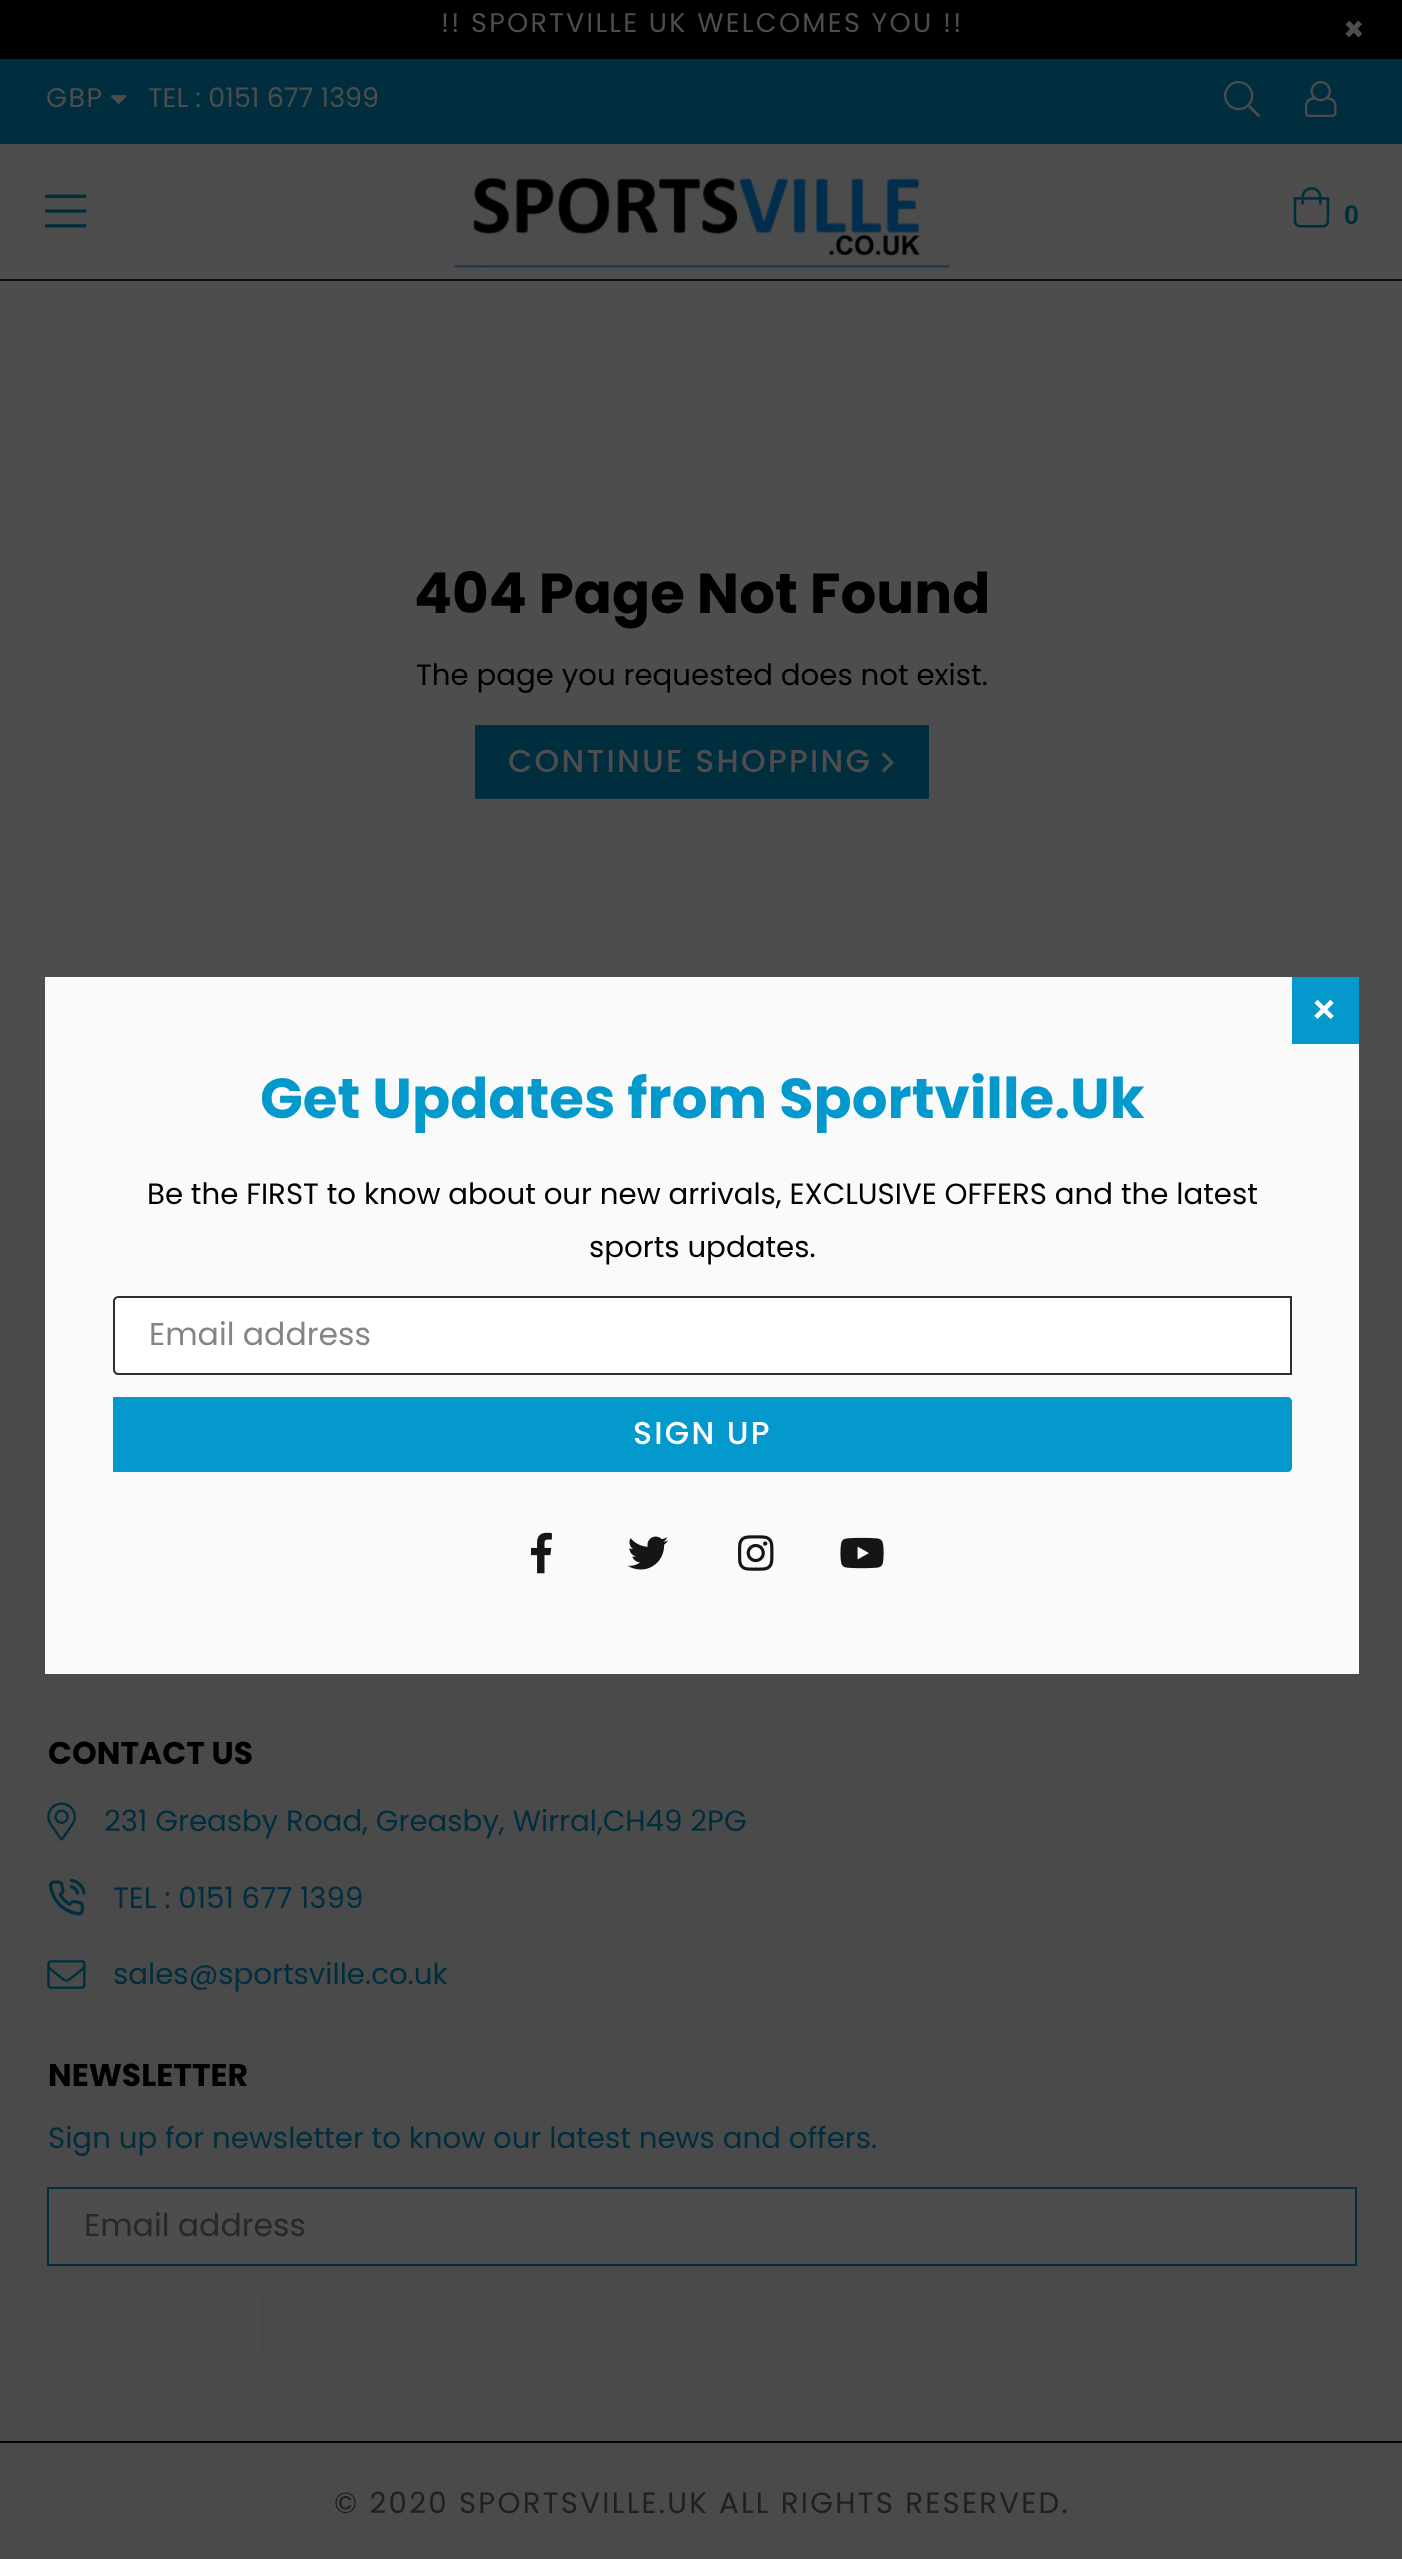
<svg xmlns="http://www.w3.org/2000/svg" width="1402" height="2559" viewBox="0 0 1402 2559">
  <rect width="100%" height="100%" fill="#4d4d4d"/>
  <rect x="0" y="0" width="1402" height="59" fill="#000000"/>
  <text x="441" y="32" font-family="Poppins" font-size="27" letter-spacing="2.25" fill="#4d4d4d">!! SPORTVILLE UK WELCOMES YOU !!</text>
  <text x="1343" y="41" font-family="Poppins" font-size="34" font-weight="bold" fill="#4d4d4d">×</text>
  <rect x="0" y="59" width="1402" height="85" fill="#012e3e"/>
  <text x="46" y="107" font-family="Poppins" font-size="27" letter-spacing="1.5" fill="#4d4d4d">GBP</text>
  <image x="110" y="95" width="17" height="9" href="img1.png"/>
  <text x="148" y="107" font-family="Poppins" font-size="27" fill="#4d4d4d">TEL : 0151 677 1399</text>
  <image x="1224" y="81" width="36" height="36" href="img2.png"/>
  <image x="1305" y="81" width="32" height="36" href="img3.png"/>
  <rect x="0" y="279" width="1402" height="2" fill="#0e0e0e"/>
  <image x="45" y="194" width="42" height="34" href="img4.png"/>
  <image x="454" y="173" width="496" height="95" href="img5.png"/>
  <image x="1293" y="187" width="37" height="41" href="img6.png"/>
  <text x="1344" y="224" font-family="Liberation Sans" font-size="27" font-weight="bold" fill="#012e3e">0</text>
  <text x="414" y="613" font-family="Poppins" font-size="56.25" font-weight="bold" fill="#000000">404 Page Not Found</text>
  <text x="416" y="685" font-family="Poppins" font-size="29.25" fill="#000000">The page you requested does not exist.</text>
  <rect x="475" y="725" width="454" height="74" fill="#012e3e"/>
  <text x="508" y="772" font-family="Poppins" font-size="31.5" font-weight="500" letter-spacing="2.25" fill="#4d4d4d">CONTINUE SHOPPING</text>
  <image x="882" y="752" width="12" height="21" href="img7.png"/>
  <rect x="0" y="1121" width="1402" height="1438" fill="#4a4a4a"/>
  <text x="48" y="1764" font-family="Poppins" font-size="31.5" font-weight="bold" fill="#000000">CONTACT US</text>
  <image x="47" y="1802" width="29" height="39" href="img8.png"/>
  <text x="104" y="1831" font-family="Poppins" font-size="29.25" fill="#012e3e">231 Greasby Road, Greasby, Wirral,CH49 2PG</text>
  <image x="49" y="1878" width="37" height="38" href="img9.png"/>
  <text x="113" y="1908" font-family="Poppins" font-size="29.25" fill="#012e3e">TEL : 0151 677 1399</text>
  <image x="47" y="1960" width="39" height="29" href="img10.png"/>
  <text x="113" y="1984" font-family="Poppins" font-size="29.25" fill="#012e3e">sales@sportsville.co.uk</text>
  <text x="48" y="2086" font-family="Poppins" font-size="31.5" font-weight="bold" fill="#000000">NEWSLETTER</text>
  <text x="48" y="2148" font-family="Poppins" font-size="29.25" fill="#012e3e">Sign up for newsletter to know our latest news and offers.</text>
  <rect x="48" y="2188" width="1308" height="77" fill="#4d4d4d" stroke="#012e3e" stroke-width="2"/>
  <text x="84" y="2236" font-family="Poppins" font-size="31.5" fill="#282828">Email address</text>
  <path d="M48 2285H254C256 2285 258 2287 258 2289V2358C258 2360 256 2362 254 2362H48Z" fill="none" stroke="#4d4d4d" stroke-width="2"/>
  <rect x="0" y="2441" width="1402" height="2" fill="#080707"/>
  <text x="334" y="2513" font-family="Poppins" font-size="29.25" letter-spacing="2.25" fill="#202020">© 2020 SPORTSVILLE.UK ALL RIGHTS RESERVED.</text>
  <rect x="45" y="977" width="1314" height="697" fill="#fafafa"/>
  <rect x="1292" y="977" width="67" height="67" fill="#0499cd"/>
  <text x="1309" y="1025" font-family="Poppins" font-size="43" font-weight="500" letter-spacing="2.25" fill="#ffffff">×</text>
  <text x="260" y="1118" font-family="Poppins" font-size="56.25" font-weight="bold" fill="#0499cd">Get Updates from Sportville.Uk</text>
  <text x="147" y="1204" font-family="Poppins" font-size="29.25" fill="#000000">Be the FIRST to know about our new arrivals, EXCLUSIVE OFFERS and the latest</text>
  <text x="589" y="1257" font-family="Poppins" font-size="29.25" fill="#000000">sports updates.</text>
  <path d="M118 1297H1291V1374H118C116 1374 114 1372 114 1370V1301C114 1299 116 1297 118 1297Z" fill="#ffffff" stroke="#2e2e2e" stroke-width="2"/>
  <text x="149" y="1345" font-family="Poppins" font-size="31.5" fill="#858585">Email address</text>
  <path d="M113 1397H1287C1290 1397 1292 1399 1292 1402V1467C1292 1470 1290 1472 1287 1472H113Z" fill="#0499cd"/>
  <text x="633" y="1444" font-family="Poppins" font-size="31.5" font-weight="500" letter-spacing="2.25" fill="#ffffff">SIGN UP</text>
  <image x="531" y="1532" width="21" height="42" href="img11.png"/>
  <image x="628" y="1536" width="41" height="34" href="img12.png"/>
  <image x="738" y="1535" width="36" height="36" href="img13.png"/>
  <image x="840" y="1537" width="44" height="32" href="img14.png"/>
</svg>
